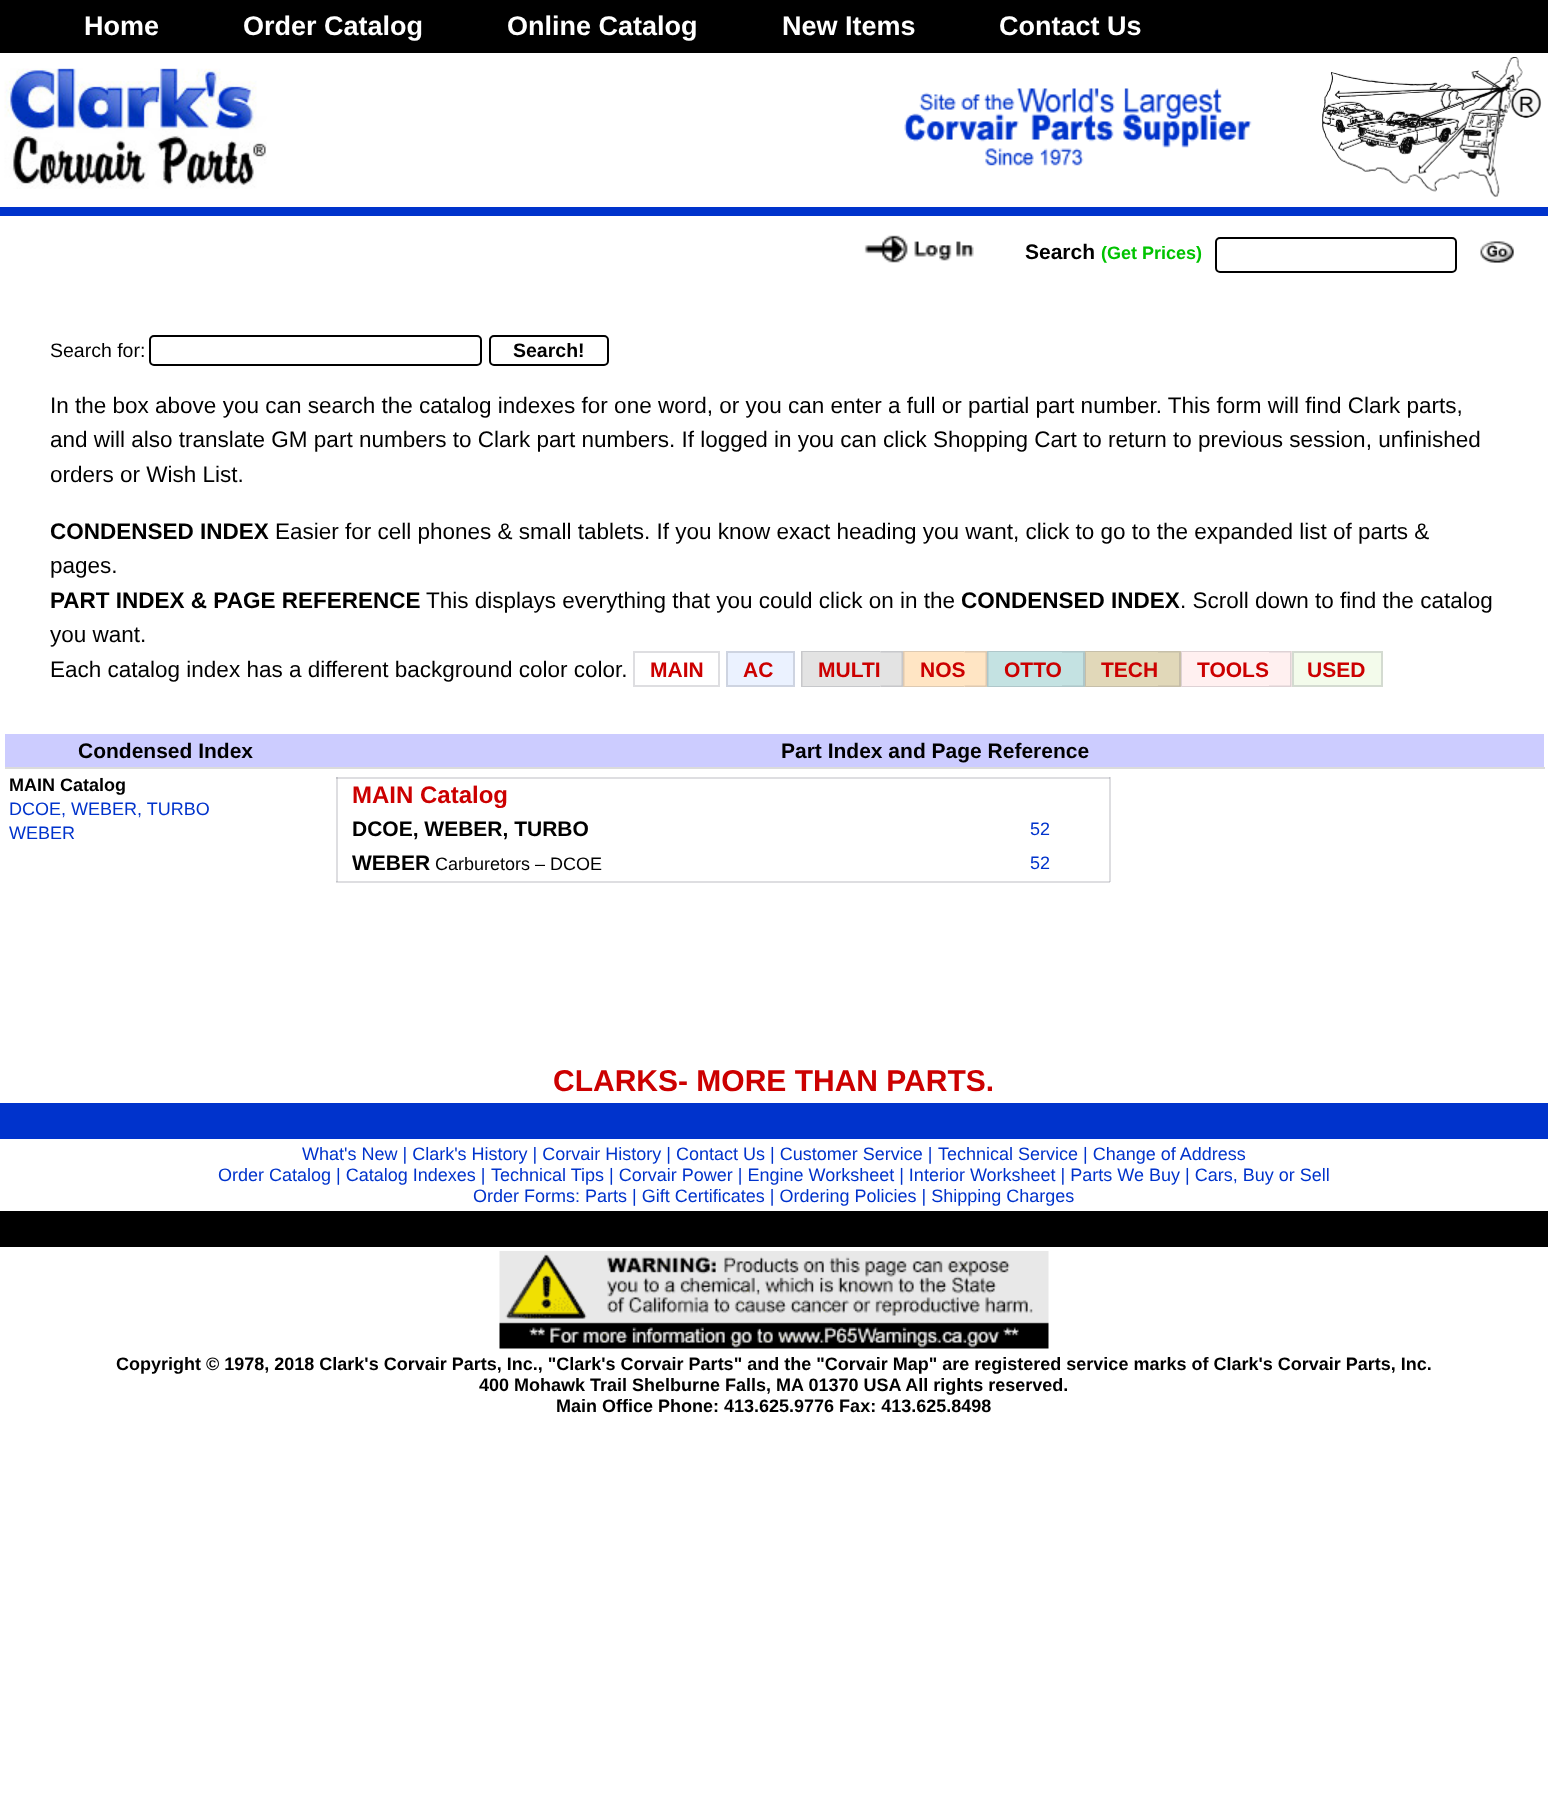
<svg xmlns="http://www.w3.org/2000/svg" width="1548" height="1815" viewBox="0 0 1548 1815">
  <rect width="100%" height="100%" fill="#ffffff"/>
  <rect x="336" y="777" width="2" height="105" fill="#dedee1"/>
  <rect x="336" y="881" width="774" height="2" fill="#dedee1"/>
  <rect x="336" y="881" width="2" height="1" fill="#c3c4c9"/>
  <rect x="1109" y="777" width="2" height="105" fill="#dedee1"/>
  <rect x="1109" y="881" width="1" height="1" fill="#c3c4c9"/>
  <rect x="0" y="0" width="1548" height="53" fill="#000000"/>
  <text x="84" y="35" font-family="Liberation Sans" font-size="27" font-weight="bold" fill="#ffffff">Home</text>
  <text x="243" y="35" font-family="Liberation Sans" font-size="27" font-weight="bold" fill="#ffffff">Order Catalog</text>
  <text x="507" y="35" font-family="Liberation Sans" font-size="27" font-weight="bold" fill="#ffffff">Online Catalog</text>
  <text x="782" y="35" font-family="Liberation Sans" font-size="27" font-weight="bold" fill="#ffffff">New Items</text>
  <text x="999" y="35" font-family="Liberation Sans" font-size="27" font-weight="bold" fill="#ffffff">Contact Us</text>
  <image x="4" y="68" width="263" height="121" href="img1.png"/>
  <image x="904" y="88" width="348" height="78" href="img2.png"/>
  <image x="1322" y="57" width="220" height="140" href="img3.png"/>
  <rect x="0" y="207" width="1548" height="9" fill="#0033cc"/>
  <image x="864" y="235" width="110" height="28" href="img4.png"/>
  <text x="1025" y="259" font-family="Liberation Sans" font-size="21" font-weight="bold" fill="#000000">Search</text>
  <text x="1101" y="259" font-family="Liberation Sans" font-size="18" font-weight="bold" fill="#00c300">(Get Prices)</text>
  <rect x="1216" y="238" width="240" height="34" rx="4" fill="none" stroke="#000000" stroke-width="2"/>
  <image x="1480" y="241" width="34" height="22" href="img5.png"/>
  <text x="50" y="357" font-family="Liberation Sans" font-size="19.5" fill="#000000">Search for:</text>
  <rect x="150" y="336" width="331" height="29" rx="4" fill="none" stroke="#000000" stroke-width="2"/>
  <rect x="490" y="336" width="118" height="29" rx="4" fill="none" stroke="#000000" stroke-width="2"/>
  <text x="513" y="357" font-family="Liberation Sans" font-size="19.5" font-weight="bold" fill="#000000">Search!</text>
  <text x="50" y="413" font-family="Liberation Sans" font-size="22.5" fill="#000000">In the box above you can search the catalog indexes for one word, or you can enter a full or partial part number. This form will find Clark parts,</text>
  <text x="50" y="447" font-family="Liberation Sans" font-size="22.5" fill="#000000">and will also translate GM part numbers to Clark part numbers. If logged in you can click Shopping Cart to return to previous session, unfinished</text>
  <text x="50" y="482" font-family="Liberation Sans" font-size="22.5" fill="#000000">orders or Wish List.</text>
  <text x="50" y="539" font-family="Liberation Sans" font-size="22.5" font-weight="bold" fill="#000000">CONDENSED INDEX</text>
  <text x="275" y="539" font-family="Liberation Sans" font-size="22.5" fill="#000000">Easier for cell phones &amp; small tablets. If you know exact heading you want, click to go to the expanded list of parts &amp;</text>
  <text x="50" y="573" font-family="Liberation Sans" font-size="22.5" fill="#000000">pages.</text>
  <text x="50" y="608" font-family="Liberation Sans" font-size="22.5" font-weight="bold" fill="#000000">PART INDEX &amp; PAGE REFERENCE</text>
  <text x="426" y="608" font-family="Liberation Sans" font-size="22.5" fill="#000000">This displays everything that you could click on in the</text>
  <text x="961" y="608" font-family="Liberation Sans" font-size="22.5" font-weight="bold" fill="#000000">CONDENSED INDEX</text>
  <text x="1180" y="608" font-family="Liberation Sans" font-size="22.5" fill="#000000">. Scroll down to find the catalog</text>
  <text x="50" y="642" font-family="Liberation Sans" font-size="22.5" fill="#000000">you want.</text>
  <text x="50" y="677" font-family="Liberation Sans" font-size="22.5" fill="#000000">Each catalog index has a different background color color.</text>
  <rect x="634" y="652" width="85" height="34" fill="none" stroke="#dedee1" stroke-width="2"/>
  <text x="650" y="677" font-family="Liberation Sans" font-size="21" font-weight="bold" fill="#cc0000">MAIN</text>
  <rect x="727" y="652" width="67" height="34" fill="#ebf2ff" stroke="#ced4e1" stroke-width="2"/>
  <text x="743" y="677" font-family="Liberation Sans" font-size="21" font-weight="bold" fill="#cc0000">AC</text>
  <rect x="801" y="651" width="102" height="36" fill="#e3e3e3"/>
  <text x="818" y="677" font-family="Liberation Sans" font-size="21" font-weight="bold" fill="#cc0000">MULTI</text>
  <path d="M801 651H880V652H802Z" fill="#c7c8cb"/>
  <path d="M880 687H801L802 686H880Z" fill="#c7c8cb"/>
  <path d="M801 687V651L802.5 652.5V685.5Z" fill="#595c69" fill-opacity="0.2"/>
  <path d="M880.5 651H903L901.5 652.5H880.5Z" fill="#c7c8cb"/>
  <path d="M903 651V687L901.5 685.5V652.5Z" fill="#595c69" fill-opacity="0.2"/>
  <path d="M903 687H880.5V685.5H901.5Z" fill="#595c69" fill-opacity="0.2"/>
  <rect x="903" y="651" width="84" height="36" fill="#ffe5c4"/>
  <path d="M903 651H964V652H904ZM964 687H903L904 686H964Z" fill="#decab2"/>
  <text x="920" y="677" font-family="Liberation Sans" font-size="21" font-weight="bold" fill="#cc0000">NOS</text>
  <path d="M903 687V651L904.5 652.5V685.5Z" fill="#595c69" fill-opacity="0.2"/>
  <path d="M964.5 651H987L985.5 652.5H964.5Z" fill="#decab2"/>
  <path d="M987 651V687L985.5 685.5V652.5Z" fill="#595c69" fill-opacity="0.2"/>
  <path d="M987 687H964.5V685.5H985.5Z" fill="#595c69" fill-opacity="0.2"/>
  <rect x="987" y="651" width="98" height="36" fill="#c4e2e2"/>
  <text x="1004" y="677" font-family="Liberation Sans" font-size="21" font-weight="bold" fill="#cc0000">OTTO</text>
  <path d="M987 651H1062V652H988Z" fill="#afc7ca"/>
  <path d="M1062 687H987L988 686H1062Z" fill="#afc7ca"/>
  <path d="M987 687V651L988.5 652.5V685.5Z" fill="#595c69" fill-opacity="0.2"/>
  <path d="M1062 651H1084.5L1083 652.5H1062Z" fill="#afc7ca"/>
  <path d="M1084.5 651V687L1083 685.5V652.5Z" fill="#595c69" fill-opacity="0.2"/>
  <path d="M1084.5 687H1062V685.5H1083Z" fill="#595c69" fill-opacity="0.2"/>
  <rect x="1085" y="651" width="96" height="36" fill="#e1d8b9"/>
  <text x="1101" y="677" font-family="Liberation Sans" font-size="21" font-weight="bold" fill="#cc0000">TECH</text>
  <path d="M1084 651H1158V652H1086Z" fill="#c6bfa9"/>
  <path d="M1158 687H1084L1086 686H1158Z" fill="#c6bfa9"/>
  <path d="M1084.5 687V651L1086 652.5V685.5Z" fill="#595c69" fill-opacity="0.2"/>
  <path d="M1158 651H1180.5L1179 652.5H1158Z" fill="#c6bfa9"/>
  <path d="M1180.5 651V687L1179 685.5V652.5Z" fill="#595c69" fill-opacity="0.2"/>
  <path d="M1180.5 687H1158V685.5H1179Z" fill="#595c69" fill-opacity="0.2"/>
  <rect x="1181" y="651" width="111" height="36" fill="#fff0f0"/>
  <text x="1197" y="677" font-family="Liberation Sans" font-size="21" font-weight="bold" fill="#cc0000">TOOLS</text>
  <path d="M1180 651H1269V652H1182Z" fill="#ded2d5"/>
  <path d="M1269 687H1180L1182 686H1269Z" fill="#ded2d5"/>
  <path d="M1180.5 687V651L1182 652.5V685.5Z" fill="#595c69" fill-opacity="0.2"/>
  <path d="M1269 651H1291.5L1290 652.5H1269Z" fill="#ded2d5"/>
  <path d="M1291.5 651V687L1290 685.5V652.5Z" fill="#595c69" fill-opacity="0.2"/>
  <path d="M1291.5 687H1269V685.5H1290Z" fill="#595c69" fill-opacity="0.2"/>
  <rect x="1293" y="652" width="89" height="34" fill="#f3fbeb" stroke="#d4dbd1" stroke-width="2"/>
  <text x="1307" y="677" font-family="Liberation Sans" font-size="21" font-weight="bold" fill="#cc0000">USED</text>
  <rect x="5" y="734" width="1539" height="33" fill="#ccccff"/>
  <text x="78" y="758" font-family="Liberation Sans" font-size="21" font-weight="bold" fill="#000000">Condensed Index</text>
  <rect x="5" y="767" width="1540" height="2" fill="#dbdbdb"/>
  <text x="781" y="758" font-family="Liberation Sans" font-size="21" font-weight="bold" fill="#000000">Part Index and Page Reference</text>
  <text x="9" y="791" font-family="Liberation Sans" font-size="18" font-weight="bold" fill="#000000">MAIN Catalog</text>
  <text x="9" y="815" font-family="Liberation Sans" font-size="18" fill="#0033cc">DCOE, WEBER, TURBO</text>
  <text x="9" y="839" font-family="Liberation Sans" font-size="18" fill="#0033cc">WEBER</text>
  <rect x="336" y="777" width="774" height="2" fill="#dedee1"/>
  <rect x="336" y="777" width="2" height="2" fill="#c3c4c9"/>
  <rect x="1109" y="777" width="1" height="2" fill="#c3c4c9"/>
  <text x="352" y="803" font-family="Liberation Sans" font-size="24" font-weight="bold" fill="#cc0000">MAIN Catalog</text>
  <text x="352" y="836" font-family="Liberation Sans" font-size="21" font-weight="bold" fill="#000000">DCOE, WEBER, TURBO</text>
  <text x="1030" y="835" font-family="Liberation Sans" font-size="18" fill="#0033cc">52</text>
  <text x="352" y="870" font-family="Liberation Sans" font-size="21" font-weight="bold" fill="#000000">WEBER</text>
  <text x="435" y="870" font-family="Liberation Sans" font-size="18" fill="#000000">Carburetors – DCOE</text>
  <text x="1030" y="869" font-family="Liberation Sans" font-size="18" fill="#0033cc">52</text>
  <text x="553" y="1091" font-family="Liberation Sans" font-size="30" font-weight="bold" fill="#cc0000">CLARKS- MORE THAN PARTS.</text>
  <rect x="0" y="1103" width="1548" height="36" fill="#0033cc"/>
  <text x="302" y="1160" font-family="Liberation Sans" font-size="18" fill="#0033cc">What's New | Clark's History | Corvair History | Contact Us | Customer Service |</text>
  <text x="938" y="1160" font-family="Liberation Sans" font-size="18" fill="#0033cc">Technical Service | Change of Address</text>
  <text x="218" y="1181" font-family="Liberation Sans" font-size="18" fill="#0033cc">Order Catalog | Catalog Indexes |</text>
  <text x="491" y="1181" font-family="Liberation Sans" font-size="18" fill="#0033cc">Technical Tips | Corvair Power | Engine Worksheet | Interior Worksheet | Parts We Buy | Cars, Buy or Sell</text>
  <text x="473" y="1202" font-family="Liberation Sans" font-size="18" fill="#0033cc">Order Forms: Parts | Gift Certificates | Ordering Policies | Shipping Charges</text>
  <rect x="0" y="1211" width="1548" height="36" fill="#000000"/>
  <image x="499" y="1251" width="550" height="98" href="img6.png"/>
  <text x="116" y="1370" font-family="Liberation Sans" font-size="18" font-weight="bold" fill="#000000">Copyright © 1978, 2018 Clark's Corvair Parts, Inc., "Clark's Corvair Parts" and the "Corvair Map" are registered service marks of Clark's Corvair Parts, Inc.</text>
  <text x="479" y="1391" font-family="Liberation Sans" font-size="18" font-weight="bold" fill="#000000">400 Mohawk Trail Shelburne Falls, MA 01370 USA All rights reserved.</text>
  <text x="556" y="1412" font-family="Liberation Sans" font-size="18" font-weight="bold" fill="#000000">Main Office Phone: 413.625.9776 Fax: 413.625.8498</text>
</svg>
